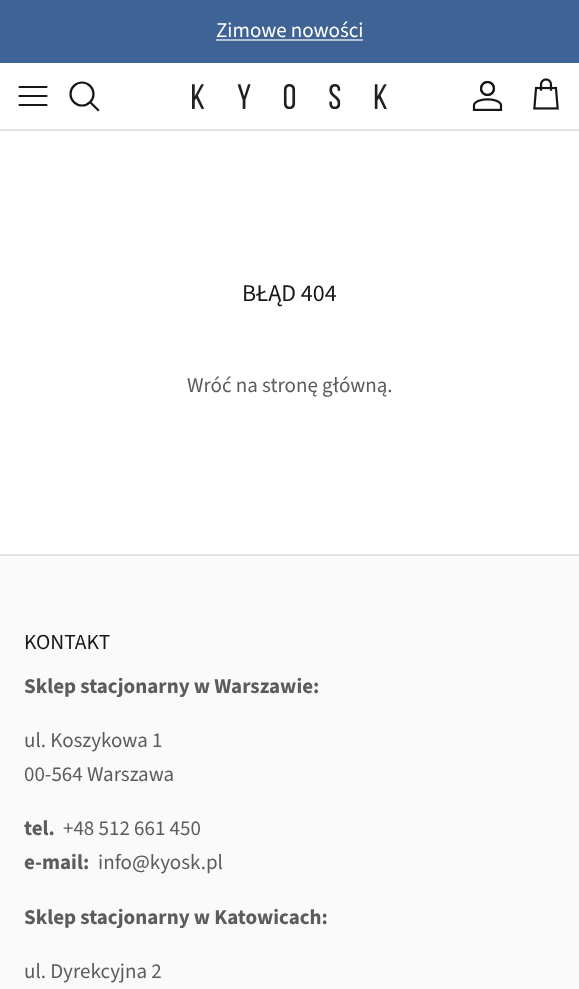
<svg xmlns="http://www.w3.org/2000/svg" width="579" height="989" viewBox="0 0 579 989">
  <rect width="100%" height="100%" fill="#ffffff"/>
  <rect x="0" y="0" width="579" height="63" fill="#3f6394"/>
  <text x="216" y="37" font-family="Source Sans Pro" font-size="21" fill="#ffffff">Zimowe nowości</text>
  <rect x="216" y="39" width="147" height="2" fill="#b2c1d4"/>
  <rect x="0" y="129" width="579" height="2" fill="#dfe3e8"/>
  <path d="M19.5 96H46.5M19.5 87H46.5M19.5 105H46.5" fill="none" stroke="#171717" stroke-width="2.2" stroke-linecap="round" stroke-linejoin="round"/>
  <circle cx="82" cy="94" r="11.5" fill="none" stroke="#171717" stroke-width="2.2"/>
  <path d="M91.5 103.5L98 110" fill="none" stroke="#171717" stroke-width="2.2" stroke-linecap="square"/>
  <image x="192" y="84" width="195" height="26" href="img1.png"/>
  <image x="472" y="80" width="31" height="31" href="img2.png"/>
  <image x="533" y="78" width="26" height="32" href="img3.png"/>
  <text x="242" y="301" font-family="Source Sans Pro" font-size="24" fill="#171717">BŁĄD 404</text>
  <text x="187" y="392" font-family="Source Sans Pro" font-size="21" fill="#5c5c5c">Wróć na stronę główną.</text>
  <rect x="0" y="556" width="579" height="433" fill="#fafafa"/>
  <rect x="0" y="554" width="579" height="2" fill="#dfe3e8"/>
  <text x="24" y="649" font-family="Source Sans Pro" font-size="21.5" fill="#171717">KONTAKT</text>
  <text x="24" y="693" font-family="Source Sans Pro" font-size="21" font-weight="bold" fill="#5c5c5c">Sklep stacjonarny w Warszawie:</text>
  <text x="24" y="747" font-family="Source Sans Pro" font-size="21" fill="#5c5c5c">ul. Koszykowa 1</text>
  <text x="24" y="781" font-family="Source Sans Pro" font-size="21" fill="#5c5c5c">00-564 Warszawa</text>
  <text x="24" y="835" font-family="Source Sans Pro" font-size="21" font-weight="bold" fill="#5c5c5c">tel.</text>
  <text x="63" y="835" font-family="Source Sans Pro" font-size="21" fill="#5c5c5c">+48 512 661 450</text>
  <text x="24" y="869" font-family="Source Sans Pro" font-size="21" font-weight="bold" fill="#5c5c5c">e-mail:</text>
  <text x="98" y="869" font-family="Source Sans Pro" font-size="21" fill="#5c5c5c">info@kyosk.pl</text>
  <text x="24" y="924" font-family="Source Sans Pro" font-size="21" font-weight="bold" fill="#5c5c5c">Sklep stacjonarny w Katowicach:</text>
  <text x="24" y="978" font-family="Source Sans Pro" font-size="21" fill="#5c5c5c">ul. Dyrekcyjna 2</text>
</svg>
